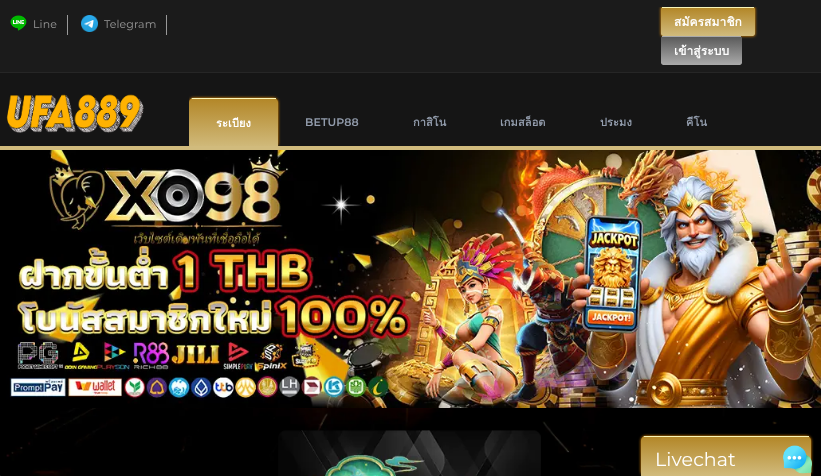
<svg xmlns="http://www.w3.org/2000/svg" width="821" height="476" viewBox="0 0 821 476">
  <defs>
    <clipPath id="clip1"><rect x="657" y="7" width="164" height="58"/></clipPath>
    <filter id="blur1" x="-50%" y="-200%" width="200%" height="500%"><feGaussianBlur stdDeviation="1.5"/></filter>
    <clipPath id="clip2"><rect x="661" y="7" width="94" height="29" rx="2"/></clipPath>
    <linearGradient id="g1" gradientUnits="userSpaceOnUse" x1="708" y1="8" x2="708" y2="36"><stop offset="0" stop-color="#b38728"/><stop offset="1" stop-color="#d1bb7d"/></linearGradient>
    <clipPath id="clip3"><rect x="661" y="36" width="81" height="29" rx="2"/></clipPath>
    <linearGradient id="g2" gradientUnits="userSpaceOnUse" x1="702" y1="37" x2="702" y2="65"><stop offset="0" stop-color="#5b5b5b"/><stop offset="1" stop-color="#aaaaaa"/></linearGradient>
    <clipPath id="clip4"><rect x="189" y="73" width="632" height="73"/></clipPath>
    <clipPath id="clip5"><path d="M194 98H273C276 98 278 100 278 103V148H189V103C189 100 191 98 194 98Z"/></clipPath>
    <linearGradient id="g3" gradientUnits="userSpaceOnUse" x1="234" y1="50" x2="234" y2="99"><stop offset="0" stop-color="#b38728"/><stop offset="1" stop-color="#d1bb7d"/></linearGradient>
    <linearGradient id="g4" gradientUnits="userSpaceOnUse" x1="234" y1="99" x2="234" y2="148"><stop offset="0" stop-color="#b38728"/><stop offset="1" stop-color="#d1bb7d"/></linearGradient>
    <clipPath id="clip6"><path d="M646 436H806C809 436 811 438 811 441V476H641V441C641 438 643 436 646 436Z"/></clipPath>
    <linearGradient id="g5" gradientUnits="userSpaceOnUse" x1="726" y1="398" x2="726" y2="437"><stop offset="0" stop-color="#b38728"/><stop offset="1" stop-color="#d1bb7d"/></linearGradient>
    <linearGradient id="g6" gradientUnits="userSpaceOnUse" x1="726" y1="437" x2="726" y2="476"><stop offset="0" stop-color="#b38728"/><stop offset="1" stop-color="#d1bb7d"/></linearGradient>
  </defs>
  <rect width="100%" height="100%" fill="#ffffff"/>
  <image x="0" y="408" width="821" height="68" href="img1.png"/>
  <rect x="0" y="0" width="821" height="72" fill="#1b1b1b"/>
  <rect x="0" y="72" width="821" height="1" fill="#262626"/>
  <rect x="67" y="15" width="1" height="20" fill="#999999"/>
  <image x="10" y="15" width="17" height="16" href="img2.png"/>
  <text x="33" y="28" font-family="Montserrat" font-size="11" letter-spacing="0.1" fill="#999999">Line</text>
  <rect x="166" y="15" width="1" height="20" fill="#999999"/>
  <image x="81" y="15" width="17" height="17" href="img3.png"/>
  <text x="104" y="28" font-family="Montserrat" font-size="11" letter-spacing="0.1" fill="#999999">Telegram</text>
  <g clip-path="url(#clip1)">
    <rect x="661" y="7" width="94" height="29" rx="2" fill="#ff9900" filter="url(#blur1)"/>
  </g>
  <g clip-path="url(#clip2)">
    <path d="M661 8H755V34C755 35 754 36 753 36H663C662 36 661 35 661 34Z" fill="url(#g1)"/>
  </g>
  <rect x="662" y="7" width="92" height="1" fill="#fbf5b7"/>
  <text x="674" y="26" font-family="Loma" font-size="12" font-weight="bold" letter-spacing="0.1" fill="#ffffff">สมัครสมาชิก</text>
  <g clip-path="url(#clip3)">
    <path d="M661 37H742V63C742 64 741 65 740 65H663C662 65 661 64 661 63Z" fill="url(#g2)"/>
  </g>
  <rect x="662" y="36" width="79" height="1" fill="#aaaaaa"/>
  <text x="674" y="55" font-family="Loma" font-size="12" font-weight="bold" letter-spacing="0.1" fill="#ffffff">เข้าสู่ระบบ</text>
  <rect x="0" y="73" width="821" height="73" fill="#151515"/>
  <rect x="0" y="146" width="821" height="4" fill="#d1bb7d"/>
  <image x="6" y="94" width="138" height="39" href="img4.png"/>
  <image x="0" y="150" width="821" height="258" href="img5.png"/>
  <g clip-path="url(#clip4)">
    <rect x="189" y="98" width="89" height="50" rx="5" fill="#ff9900" filter="url(#blur1)"/>
  </g>
  <g clip-path="url(#clip5)">
    <rect x="189" y="98" width="3" height="1" fill="url(#g3)"/>
    <rect x="189" y="99" width="89" height="47" fill="url(#g4)"/>
  </g>
  <rect x="192" y="98" width="84" height="1" fill="#fbf5b7"/>
  <text x="216" y="127" font-family="Loma" font-size="11" font-weight="bold" letter-spacing="0.1" fill="#ffffff">ระเบียง</text>
  <text x="305" y="126" font-family="Montserrat" font-size="11" font-weight="600" letter-spacing="0.1" fill="#929cac">BETUP88</text>
  <text x="413" y="126" font-family="Loma" font-size="11" font-weight="bold" letter-spacing="0.1" fill="#929cac">กาสิโน</text>
  <text x="500" y="126" font-family="Loma" font-size="11" font-weight="bold" letter-spacing="0.1" fill="#929cac">เกมสล็อต</text>
  <text x="600" y="126" font-family="Loma" font-size="11" font-weight="bold" letter-spacing="0.1" fill="#929cac">ประมง</text>
  <text x="686" y="126" font-family="Loma" font-size="11" font-weight="bold" letter-spacing="0.1" fill="#929cac">คีโน</text>
  <image x="278" y="430" width="263" height="46" href="img6.png"/>
  <rect x="641" y="436" width="170" height="40" rx="5" fill="#ff9900" filter="url(#blur1)"/>
  <g clip-path="url(#clip6)">
    <rect x="641" y="436" width="3" height="1" fill="url(#g5)"/>
    <rect x="641" y="437" width="170" height="39" fill="url(#g6)"/>
  </g>
  <rect x="644" y="436" width="165" height="1" fill="#fbf5b7"/>
  <text x="655" y="466" font-family="Montserrat" font-size="19" letter-spacing="0.1" fill="#ffffff">Livechat</text>
  <image x="783" y="445" width="29" height="29" href="img7.png"/>
</svg>
